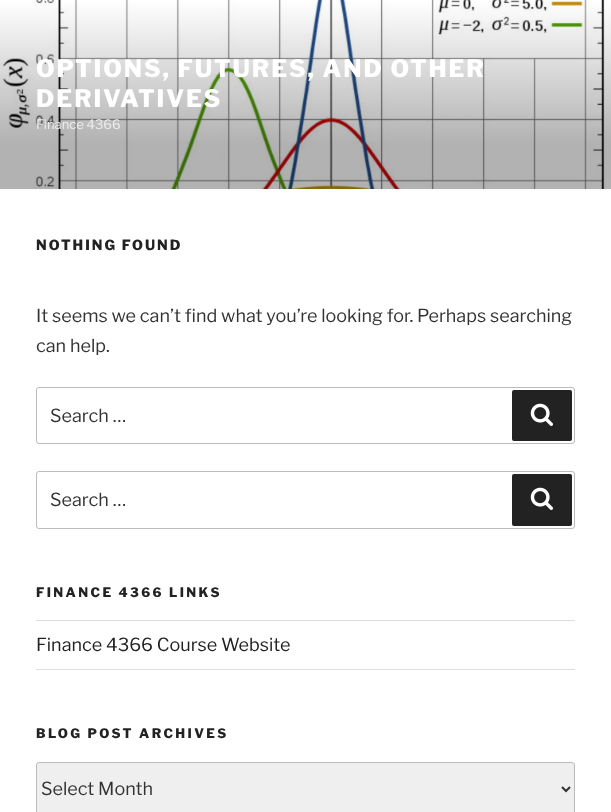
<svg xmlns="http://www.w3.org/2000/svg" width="611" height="812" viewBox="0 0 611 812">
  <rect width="100%" height="100%" fill="#ffffff"/>
  <rect x="0" y="189" width="611" height="1" fill="#fafafa"/>
  <image x="0" y="0" width="611" height="189" href="img1.png"/>
  <text x="36" y="77" font-family="Libre Franklin" font-size="24" font-weight="100" letter-spacing="1.9" fill="#ffffff">OPTIONS, FUTURES, AND OTHER</text>
  <text x="36" y="107" font-family="Libre Franklin" font-size="24" font-weight="100" letter-spacing="1.9" fill="#ffffff">DERIVATIVES</text>
  <text x="36" y="129" font-family="'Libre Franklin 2'" font-size="13" font-weight="100" fill="#eeeeee">Finance 4366</text>
  <text x="36" y="250" font-family="Libre Franklin" font-size="14" font-weight="100" letter-spacing="2" fill="#222222">NOTHING FOUND</text>
  <text x="36" y="322" font-family="'Libre Franklin 2'" font-size="18" font-weight="100" fill="#333333">It seems we can’t find what you’re looking for. Perhaps searching</text>
  <text x="36" y="352" font-family="'Libre Franklin 2'" font-size="18" font-weight="100" fill="#333333">can help.</text>
  <rect x="36.5" y="387.5" width="538" height="56" rx="2.5" fill="none" stroke="#bbbbbb"/>
  <text x="50" y="422" font-family="'Libre Franklin 2'" font-size="18" font-weight="100" fill="#333333">Search …</text>
  <rect x="512" y="390" width="60" height="51" rx="2" fill="#222222"/>
  <image x="530" y="403" width="23" height="23" href="img2.png"/>
  <rect x="36.5" y="471.5" width="538" height="57" rx="2.5" fill="none" stroke="#bbbbbb"/>
  <text x="50" y="506" font-family="'Libre Franklin 2'" font-size="18" font-weight="100" fill="#333333">Search …</text>
  <rect x="512" y="474" width="60" height="52" rx="2" fill="#222222"/>
  <image x="530" y="487" width="23" height="23" href="img2.png"/>
  <text x="36" y="597" font-family="Libre Franklin" font-size="13" font-weight="100" letter-spacing="2.4" fill="#222222">FINANCE 4366 LINKS</text>
  <rect x="36" y="620" width="539" height="1" fill="#dddddd"/>
  <rect x="36" y="669" width="539" height="1" fill="#dddddd"/>
  <text x="36" y="651" font-family="'Libre Franklin 2'" font-size="18" font-weight="100" fill="#222222">Finance 4366 Course Website</text>
  <text x="36" y="738" font-family="Libre Franklin" font-size="13" font-weight="100" letter-spacing="2.4" fill="#222222">BLOG POST ARCHIVES</text>
  <rect x="36.5" y="762.5" width="538" height="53" rx="2.5" fill="#efefef" stroke="#bbbbbb"/>
  <path d="M562 787L566 791L570 787" fill="none" stroke="#333333" stroke-width="2"/>
  <text x="41" y="795" font-family="'Libre Franklin 2'" font-size="18" font-weight="100" fill="#333333">Select Month</text>
</svg>
